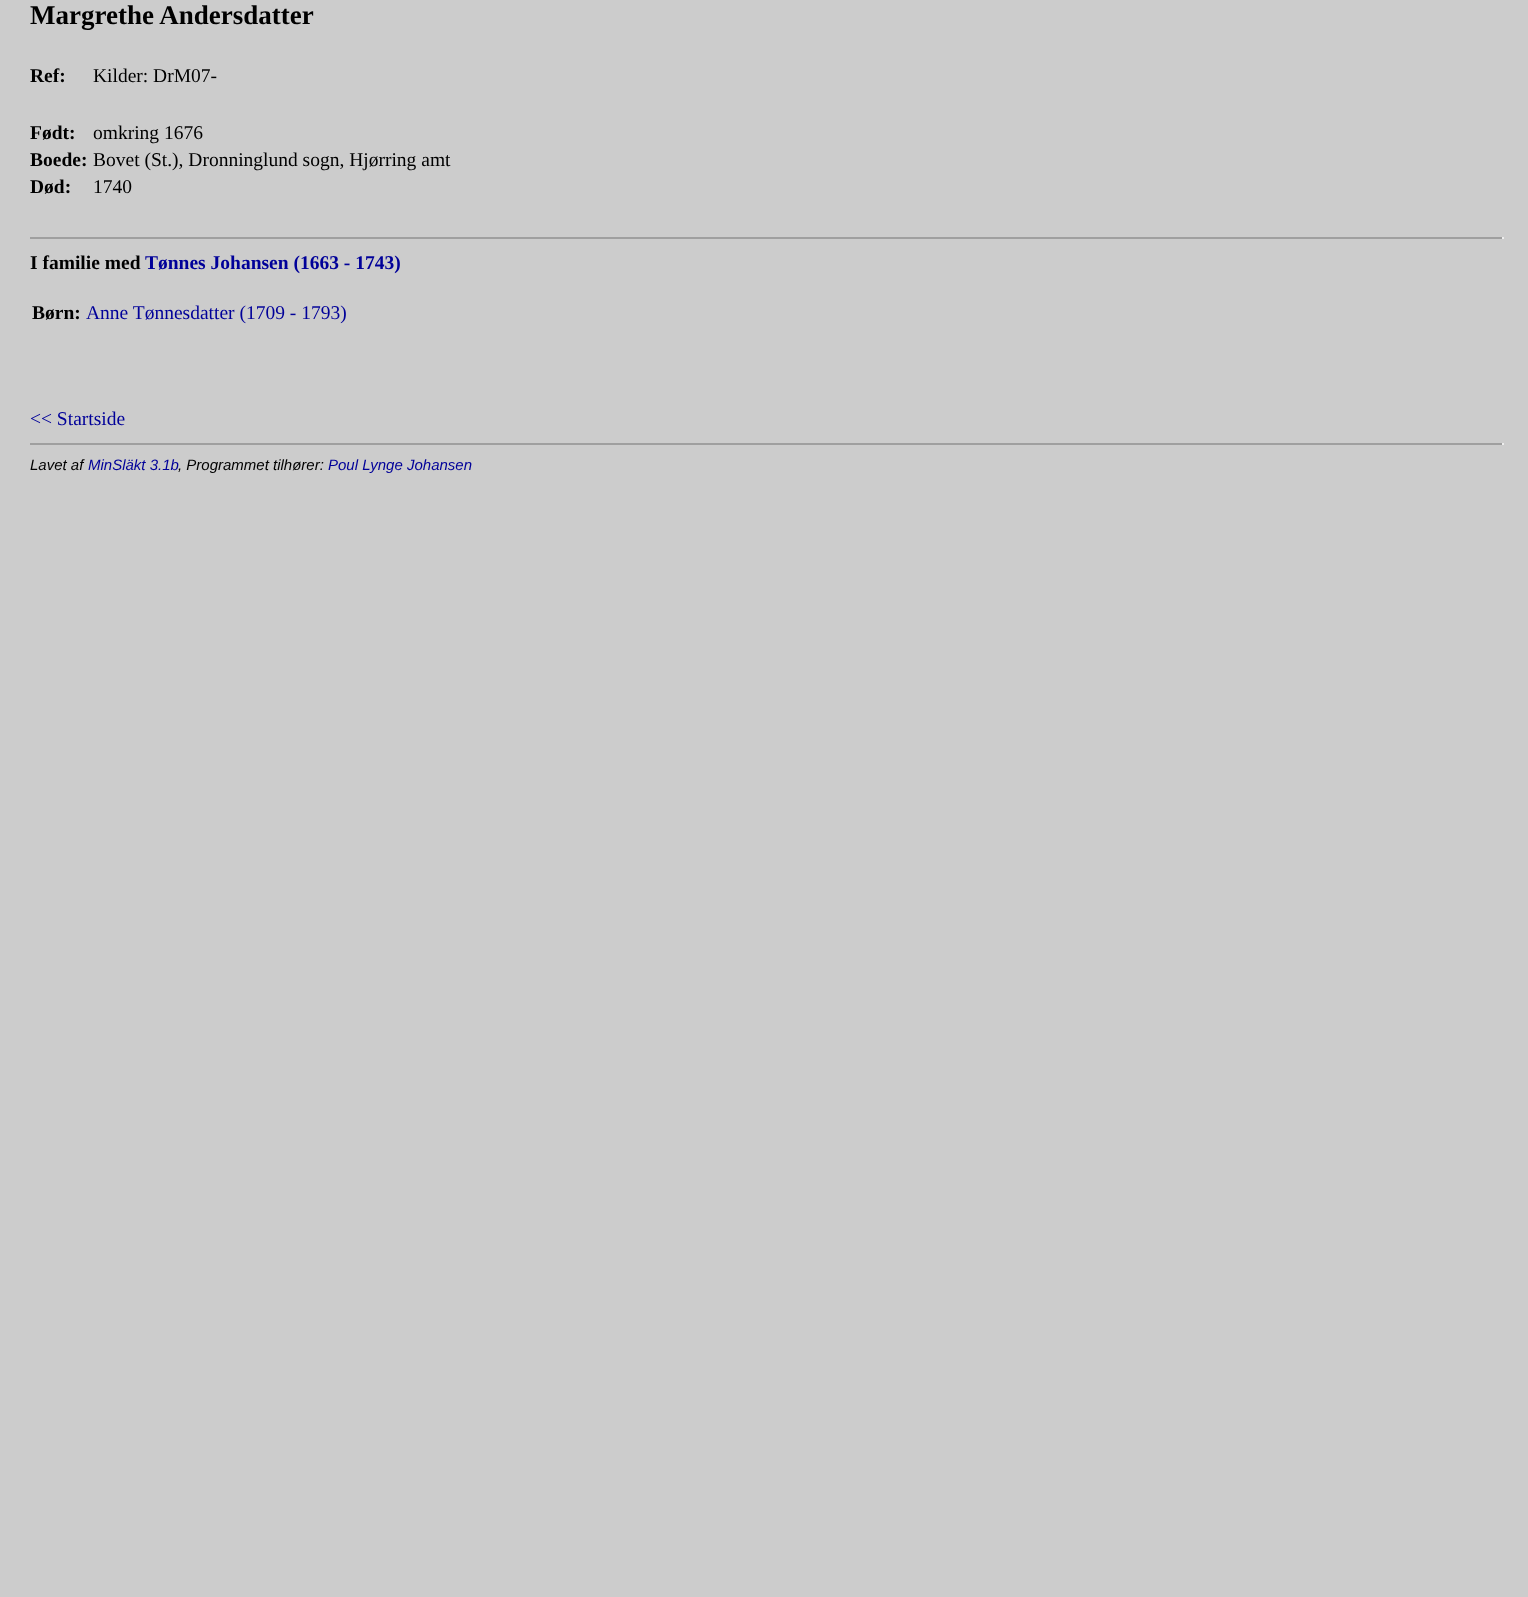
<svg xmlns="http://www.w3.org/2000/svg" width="1528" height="1597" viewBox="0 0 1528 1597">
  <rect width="100%" height="100%" fill="#cccccc"/>
  <text x="30" y="24" font-family="Liberation Serif" font-size="27" font-weight="bold" fill="#000000">Margrethe Andersdatter</text>
  <text x="30" y="82" font-family="Liberation Serif" font-size="19.5" font-weight="bold" fill="#000000">Ref:</text>
  <text x="93" y="82" font-family="Liberation Serif" font-size="19.5" fill="#000000">Kilder: DrM07-</text>
  <text x="30" y="139" font-family="Liberation Serif" font-size="19.5" font-weight="bold" fill="#000000">Født:</text>
  <text x="93" y="139" font-family="Liberation Serif" font-size="19.5" fill="#000000">omkring 1676</text>
  <text x="30" y="166" font-family="Liberation Serif" font-size="19.5" font-weight="bold" fill="#000000">Boede:</text>
  <text x="93" y="166" font-family="Liberation Serif" font-size="19.5" fill="#000000">Bovet (St.), Dronninglund sogn, Hjørring amt</text>
  <text x="30" y="193" font-family="Liberation Serif" font-size="19.5" font-weight="bold" fill="#000000">Død:</text>
  <text x="93" y="193" font-family="Liberation Serif" font-size="19.5" fill="#000000">1740</text>
  <rect x="30" y="237" width="1473" height="2" fill="#9f9f9f"/>
  <rect x="1502" y="237" width="2" height="2" fill="#eeeeee"/>
  <text x="30" y="269" font-family="Liberation Serif" font-size="19.5" font-weight="bold" fill="#000000">I familie med</text>
  <text x="145" y="269" font-family="Liberation Serif" font-size="19.5" font-weight="bold" fill="#000099">Tønnes Johansen (1663 - 1743)</text>
  <text x="32" y="319" font-family="Liberation Serif" font-size="19.5" font-weight="bold" fill="#000000">Børn:</text>
  <text x="86" y="319" font-family="Liberation Serif" font-size="19.5" fill="#000099">Anne Tønnesdatter (1709 - 1793)</text>
  <text x="30" y="425" font-family="Liberation Serif" font-size="19.5" fill="#000099">&lt;&lt; Startside</text>
  <rect x="30" y="443" width="1473" height="2" fill="#9f9f9f"/>
  <rect x="1502" y="443" width="2" height="2" fill="#eeeeee"/>
  <text x="30" y="470" font-family="Liberation Sans" font-size="15" font-style="italic" fill="#000000">Lavet af</text>
  <text x="88" y="470" font-family="Liberation Sans" font-size="15" font-style="italic" fill="#000099">MinSläkt 3.1b</text>
  <text x="178" y="470" font-family="Liberation Sans" font-size="15" font-style="italic" fill="#000000">, Programmet tilhører:</text>
  <text x="328" y="470" font-family="Liberation Sans" font-size="15" font-style="italic" fill="#000099">Poul Lynge Johansen</text>
</svg>
